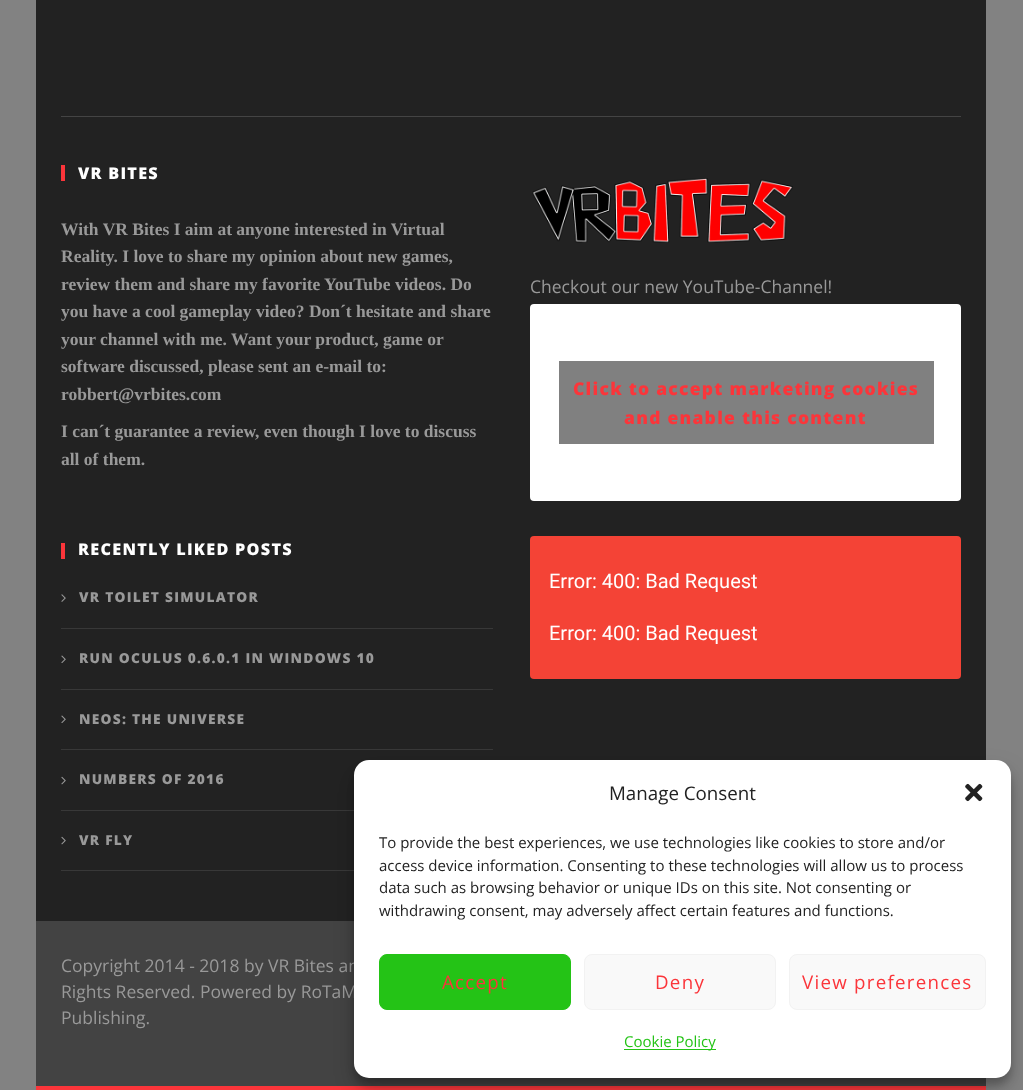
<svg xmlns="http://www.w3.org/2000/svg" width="1023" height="1090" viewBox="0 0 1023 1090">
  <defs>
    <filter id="blur1" x="-50%" y="-200%" width="200%" height="500%"><feGaussianBlur stdDeviation="0.5"/></filter>
    <filter id="blur2" x="-50%" y="-200%" width="200%" height="500%"><feGaussianBlur stdDeviation="4"/></filter>
    <filter id="blur3" x="-50%" y="-200%" width="200%" height="500%"><feGaussianBlur stdDeviation="12.5"/></filter>
  </defs>
  <rect width="100%" height="100%" fill="#828282"/>
  <rect x="36" y="0" width="950" height="921" fill="#222222"/>
  <rect x="61" y="116" width="900" height="1" fill="#444444"/>
  <rect x="61" y="165" width="4" height="16" fill="#fb353a"/>
  <text x="78" y="179" font-family="Open Sans" font-size="16.25" font-weight="800" letter-spacing="1.25" fill="#ffffff">VR BITES</text>
  <text x="61" y="235" font-family="Liberation Serif" font-size="17.5" font-weight="bold" fill="#999999">With VR Bites I aim at anyone interested in Virtual</text>
  <text x="61" y="262" font-family="Liberation Serif" font-size="17.5" font-weight="bold" fill="#999999">Reality. I love to share my opinion about new games,</text>
  <text x="61" y="290" font-family="Liberation Serif" font-size="17.5" font-weight="bold" fill="#999999">review them and share my favorite YouTube videos. Do</text>
  <text x="61" y="317" font-family="Liberation Serif" font-size="17.5" font-weight="bold" fill="#999999">you have a cool gameplay video? Don´t hesitate and share</text>
  <text x="61" y="345" font-family="Liberation Serif" font-size="17.5" font-weight="bold" fill="#999999">your channel with me. Want your product, game or</text>
  <text x="61" y="372" font-family="Liberation Serif" font-size="17.5" font-weight="bold" fill="#999999">software discussed, please sent an e-mail to:</text>
  <text x="61" y="400" font-family="Liberation Serif" font-size="17.5" font-weight="bold" fill="#999999">robbert@vrbites.com</text>
  <text x="61" y="437" font-family="Liberation Serif" font-size="17.5" font-weight="bold" fill="#999999">I can´t guarantee a review, even though I love to discuss</text>
  <text x="61" y="465" font-family="Liberation Serif" font-size="17.5" font-weight="bold" fill="#999999">all of them.</text>
  <image x="532" y="178" width="261" height="65" href="img1.png"/>
  <text x="530" y="293" font-family="Open Sans" font-size="17.5" fill="#999999">Checkout our new YouTube-Channel!</text>
  <rect x="530" y="304" width="431" height="197" rx="4" fill="#000000" fill-opacity="0.5" filter="url(#blur1)"/>
  <rect x="530" y="304" width="431" height="197" rx="4" fill="#ffffff"/>
  <rect x="559" y="361" width="375" height="83" fill="#808080"/>
  <text x="573" y="395" font-family="Open Sans" font-size="17.5" font-weight="800" letter-spacing="1.25" fill="#fb353a">Click to accept marketing cookies</text>
  <text x="624" y="424" font-family="Open Sans" font-size="17.5" font-weight="800" letter-spacing="1.25" fill="#fb353a">and enable this content</text>
  <rect x="61" y="543" width="4" height="16" fill="#fb353a"/>
  <text x="78" y="555" font-family="Open Sans" font-size="16.25" font-weight="800" letter-spacing="1.25" fill="#ffffff">RECENTLY LIKED POSTS</text>
  <rect x="61" y="628" width="432" height="1" fill="#383838"/>
  <image x="61" y="594" width="5" height="8" href="img2.png"/>
  <text x="79" y="602" font-family="Open Sans" font-size="13.75" font-weight="800" letter-spacing="1.25" fill="#999999">VR TOILET SIMULATOR</text>
  <rect x="61" y="689" width="432" height="1" fill="#383838"/>
  <image x="61" y="655" width="5" height="8" href="img3.png"/>
  <text x="79" y="663" font-family="Open Sans" font-size="13.75" font-weight="800" letter-spacing="1.25" fill="#999999">RUN OCULUS 0.6.0.1 IN WINDOWS 10</text>
  <rect x="61" y="749" width="432" height="1" fill="#383838"/>
  <image x="61" y="715" width="5" height="8" href="img3.png"/>
  <text x="79" y="724" font-family="Open Sans" font-size="13.75" font-weight="800" letter-spacing="1.25" fill="#999999">NEOS: THE UNIVERSE</text>
  <rect x="61" y="810" width="293" height="1" fill="#383838"/>
  <image x="61" y="776" width="5" height="9" href="img4.png"/>
  <text x="79" y="784" font-family="Open Sans" font-size="13.75" font-weight="800" letter-spacing="1.25" fill="#999999">NUMBERS OF 2016</text>
  <rect x="61" y="870" width="293" height="1" fill="#383838"/>
  <image x="61" y="836" width="5" height="9" href="img4.png"/>
  <text x="79" y="845" font-family="Open Sans" font-size="13.75" font-weight="800" letter-spacing="1.25" fill="#999999">VR FLY</text>
  <rect x="530" y="536" width="431" height="143" rx="4" fill="#f44336"/>
  <text x="549" y="588" font-family="Roboto" font-size="20" fill="#ffffff">Error: 400: Bad Request</text>
  <text x="549" y="640" font-family="Roboto" font-size="20" fill="#ffffff">Error: 400: Bad Request</text>
  <rect x="36" y="921" width="950" height="165" fill="#434343"/>
  <rect x="36" y="1086" width="950" height="4" fill="#fb353a"/>
  <text x="61" y="972" font-family="Open Sans" font-size="17.5" fill="#999999">Copyright 2014 - 2018 by VR Bites an</text>
  <text x="61" y="998" font-family="Open Sans" font-size="17.5" fill="#999999">Rights Reserved. Powered by RoTaM</text>
  <text x="61" y="1024" font-family="Open Sans" font-size="17.5" fill="#999999">Publishing.</text>
  <rect x="354" y="768" width="657" height="317" rx="15" fill="#000000" fill-opacity="0.23" filter="url(#blur2)"/>
  <rect x="354" y="773" width="657" height="317" rx="15" fill="#000000" fill-opacity="0.19" filter="url(#blur3)"/>
  <rect x="354" y="760" width="657" height="318" rx="15" fill="#ffffff"/>
  <text x="609" y="800" font-family="Open Sans" font-size="18.75" fill="#222222">Manage Consent</text>
  <image x="965" y="783" width="18" height="19" href="img5.png"/>
  <text x="379" y="848" font-family="Open Sans" font-size="15" fill="#222222">To provide the best experiences, we use technologies like cookies to store and/or</text>
  <text x="379" y="871" font-family="Open Sans" font-size="15" fill="#222222">access device information. Consenting to these technologies will allow us to process</text>
  <text x="379" y="893" font-family="Open Sans" font-size="15" fill="#222222">data such as browsing behavior or unique IDs on this site. Not consenting or</text>
  <text x="379" y="916" font-family="Open Sans" font-size="15" fill="#222222">withdrawing consent, may adversely affect certain features and functions.</text>
  <rect x="379.5" y="954.5" width="191" height="55" rx="7.5" fill="#24c316" stroke="#24c316"/>
  <text x="442" y="989" font-family="Open Sans" font-size="18.75" letter-spacing="1.25" fill="#fb353a">Accept</text>
  <rect x="584.5" y="954.5" width="191" height="55" rx="7.5" fill="#f9f9f9" stroke="#f2f2f2"/>
  <text x="655" y="989" font-family="Open Sans" font-size="18.75" letter-spacing="1.25" fill="#fb353a">Deny</text>
  <rect x="789.5" y="954.5" width="196" height="55" rx="7.5" fill="#f9f9f9" stroke="#f2f2f2"/>
  <text x="802" y="989" font-family="Open Sans" font-size="18.75" letter-spacing="1.25" fill="#fb353a">View preferences</text>
  <rect x="624" y="1049" width="92" height="1" fill="#24c316"/>
  <text x="624" y="1047" font-family="Open Sans" font-size="15" fill="#24c316">Cookie Policy</text>
</svg>
